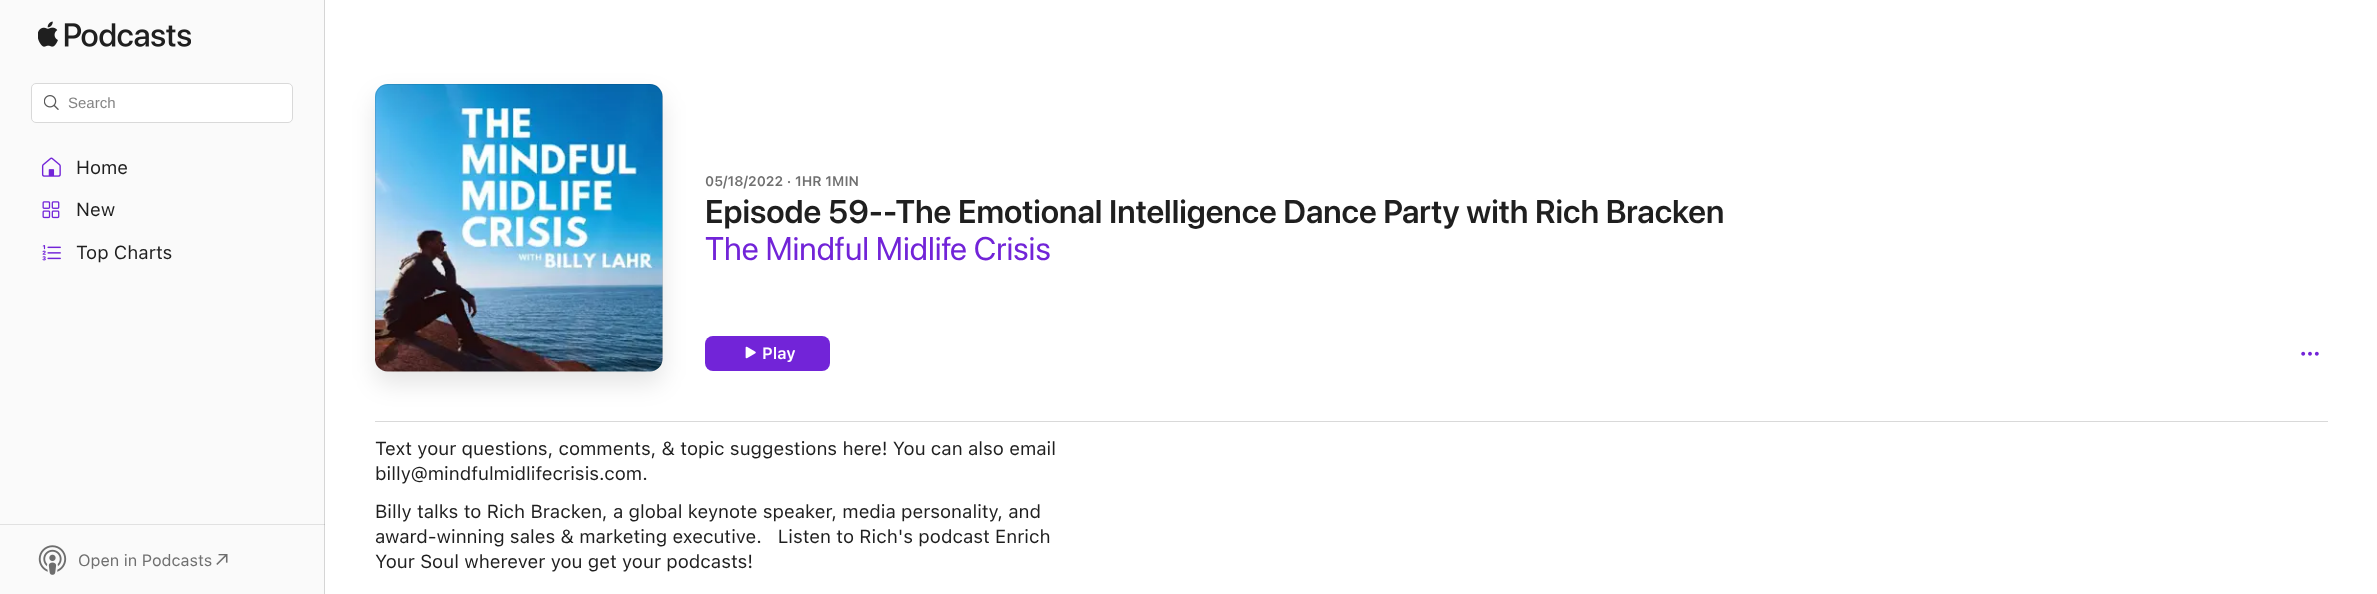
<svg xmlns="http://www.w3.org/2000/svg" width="2377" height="594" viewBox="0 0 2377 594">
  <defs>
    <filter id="blur1" x="-50%" y="-200%" width="200%" height="500%"><feGaussianBlur stdDeviation="12.5"/></filter>
  </defs>
  <rect width="100%" height="100%" fill="#ffffff"/>
  <rect x="0" y="0" width="324" height="594" fill="#fafafa"/>
  <rect x="0" y="524" width="325" height="1" fill="#e1e1e1"/>
  <rect x="324" y="0" width="1" height="594" fill="#d5d5d5"/>
  <rect x="324" y="524" width="1" height="1" fill="#c0c0c0"/>
  <image x="38" y="21" width="153" height="26" href="img1.png"/>
  <rect x="31.5" y="83.5" width="261" height="39" rx="4.5" fill="#ffffff" stroke="#d9d9d9"/>
  <image x="44" y="95" width="15" height="15" href="img2.png"/>
  <text x="68" y="108" font-family="Liberation Sans" font-size="15" fill="#858585">Search</text>
  <image x="41" y="157" width="20" height="20" href="img3.png"/>
  <text x="76" y="174" font-family="'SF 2'" font-size="18.75" fill="#1f1f1f">Home</text>
  <image x="42" y="201" width="18" height="18" href="img4.png"/>
  <text x="76" y="216" font-family="'SF 2'" font-size="18.75" fill="#1f1f1f">New</text>
  <image x="42" y="245" width="19" height="16" href="img5.png"/>
  <text x="76" y="259" font-family="'SF 2'" font-size="18.75" fill="#1f1f1f">Top Charts</text>
  <image x="38" y="545" width="29" height="30" href="img6.png"/>
  <text x="78" y="566" font-family="'SF 2'" font-size="16.25" fill="#707070">Open in Podcasts</text>
  <image x="216" y="554" width="12" height="11" href="img7.png"/>
  <rect x="375" y="421" width="1953" height="1" fill="#d9d9d9"/>
  <rect x="375" y="96" width="288" height="288" rx="13" fill="#000000" fill-opacity="0.1" filter="url(#blur1)"/>
  <image x="375" y="84" width="288" height="288" href="img8.png"/>
  <rect x="375.5" y="84.5" width="287" height="286" rx="12.5" fill="none" stroke="#000000" stroke-opacity="0.1"/>
  <text x="705" y="186" font-family="SF" font-size="13.75" font-weight="600" fill="#707070">05/18/2022 · 1HR 1MIN</text>
  <text x="705" y="223" font-family="'SF 2'" font-size="32.5" font-weight="600" fill="#1f1f1f">Episode 59--The Emotional Intelligence Dance Party with Rich Bracken</text>
  <text x="705" y="260" font-family="SF" font-size="32.5" fill="#7224d8">The Mindful Midlife Crisis</text>
  <rect x="705" y="336" width="125" height="35" rx="8" fill="#7224d8"/>
  <image x="745" y="346" width="11" height="13" href="img9.png"/>
  <text x="762" y="359" font-family="SF" font-size="16.25" font-weight="600" fill="#ffffff">Play</text>
  <image x="2301" y="351" width="18" height="5" href="img10.png"/>
  <text x="375" y="455" font-family="'SF 2'" font-size="18.75" fill="#1f1f1f">Text your questions, comments, &amp; topic suggestions here! You can also email</text>
  <text x="375" y="480" font-family="'SF 2'" font-size="18.75" fill="#1f1f1f">billy@mindfulmidlifecrisis.com.</text>
  <text x="375" y="518" font-family="'SF 2'" font-size="18.75" fill="#1f1f1f">Billy talks to Rich Bracken, a global keynote speaker, media personality, and</text>
  <text x="375" y="543" font-family="'SF 2'" font-size="18.75" fill="#1f1f1f" xml:space="preserve">award-winning sales &amp; marketing executive.   Listen to Rich's podcast Enrich</text>
  <text x="375" y="568" font-family="'SF 2'" font-size="18.75" fill="#1f1f1f">Your Soul wherever you get your podcasts!</text>
</svg>
